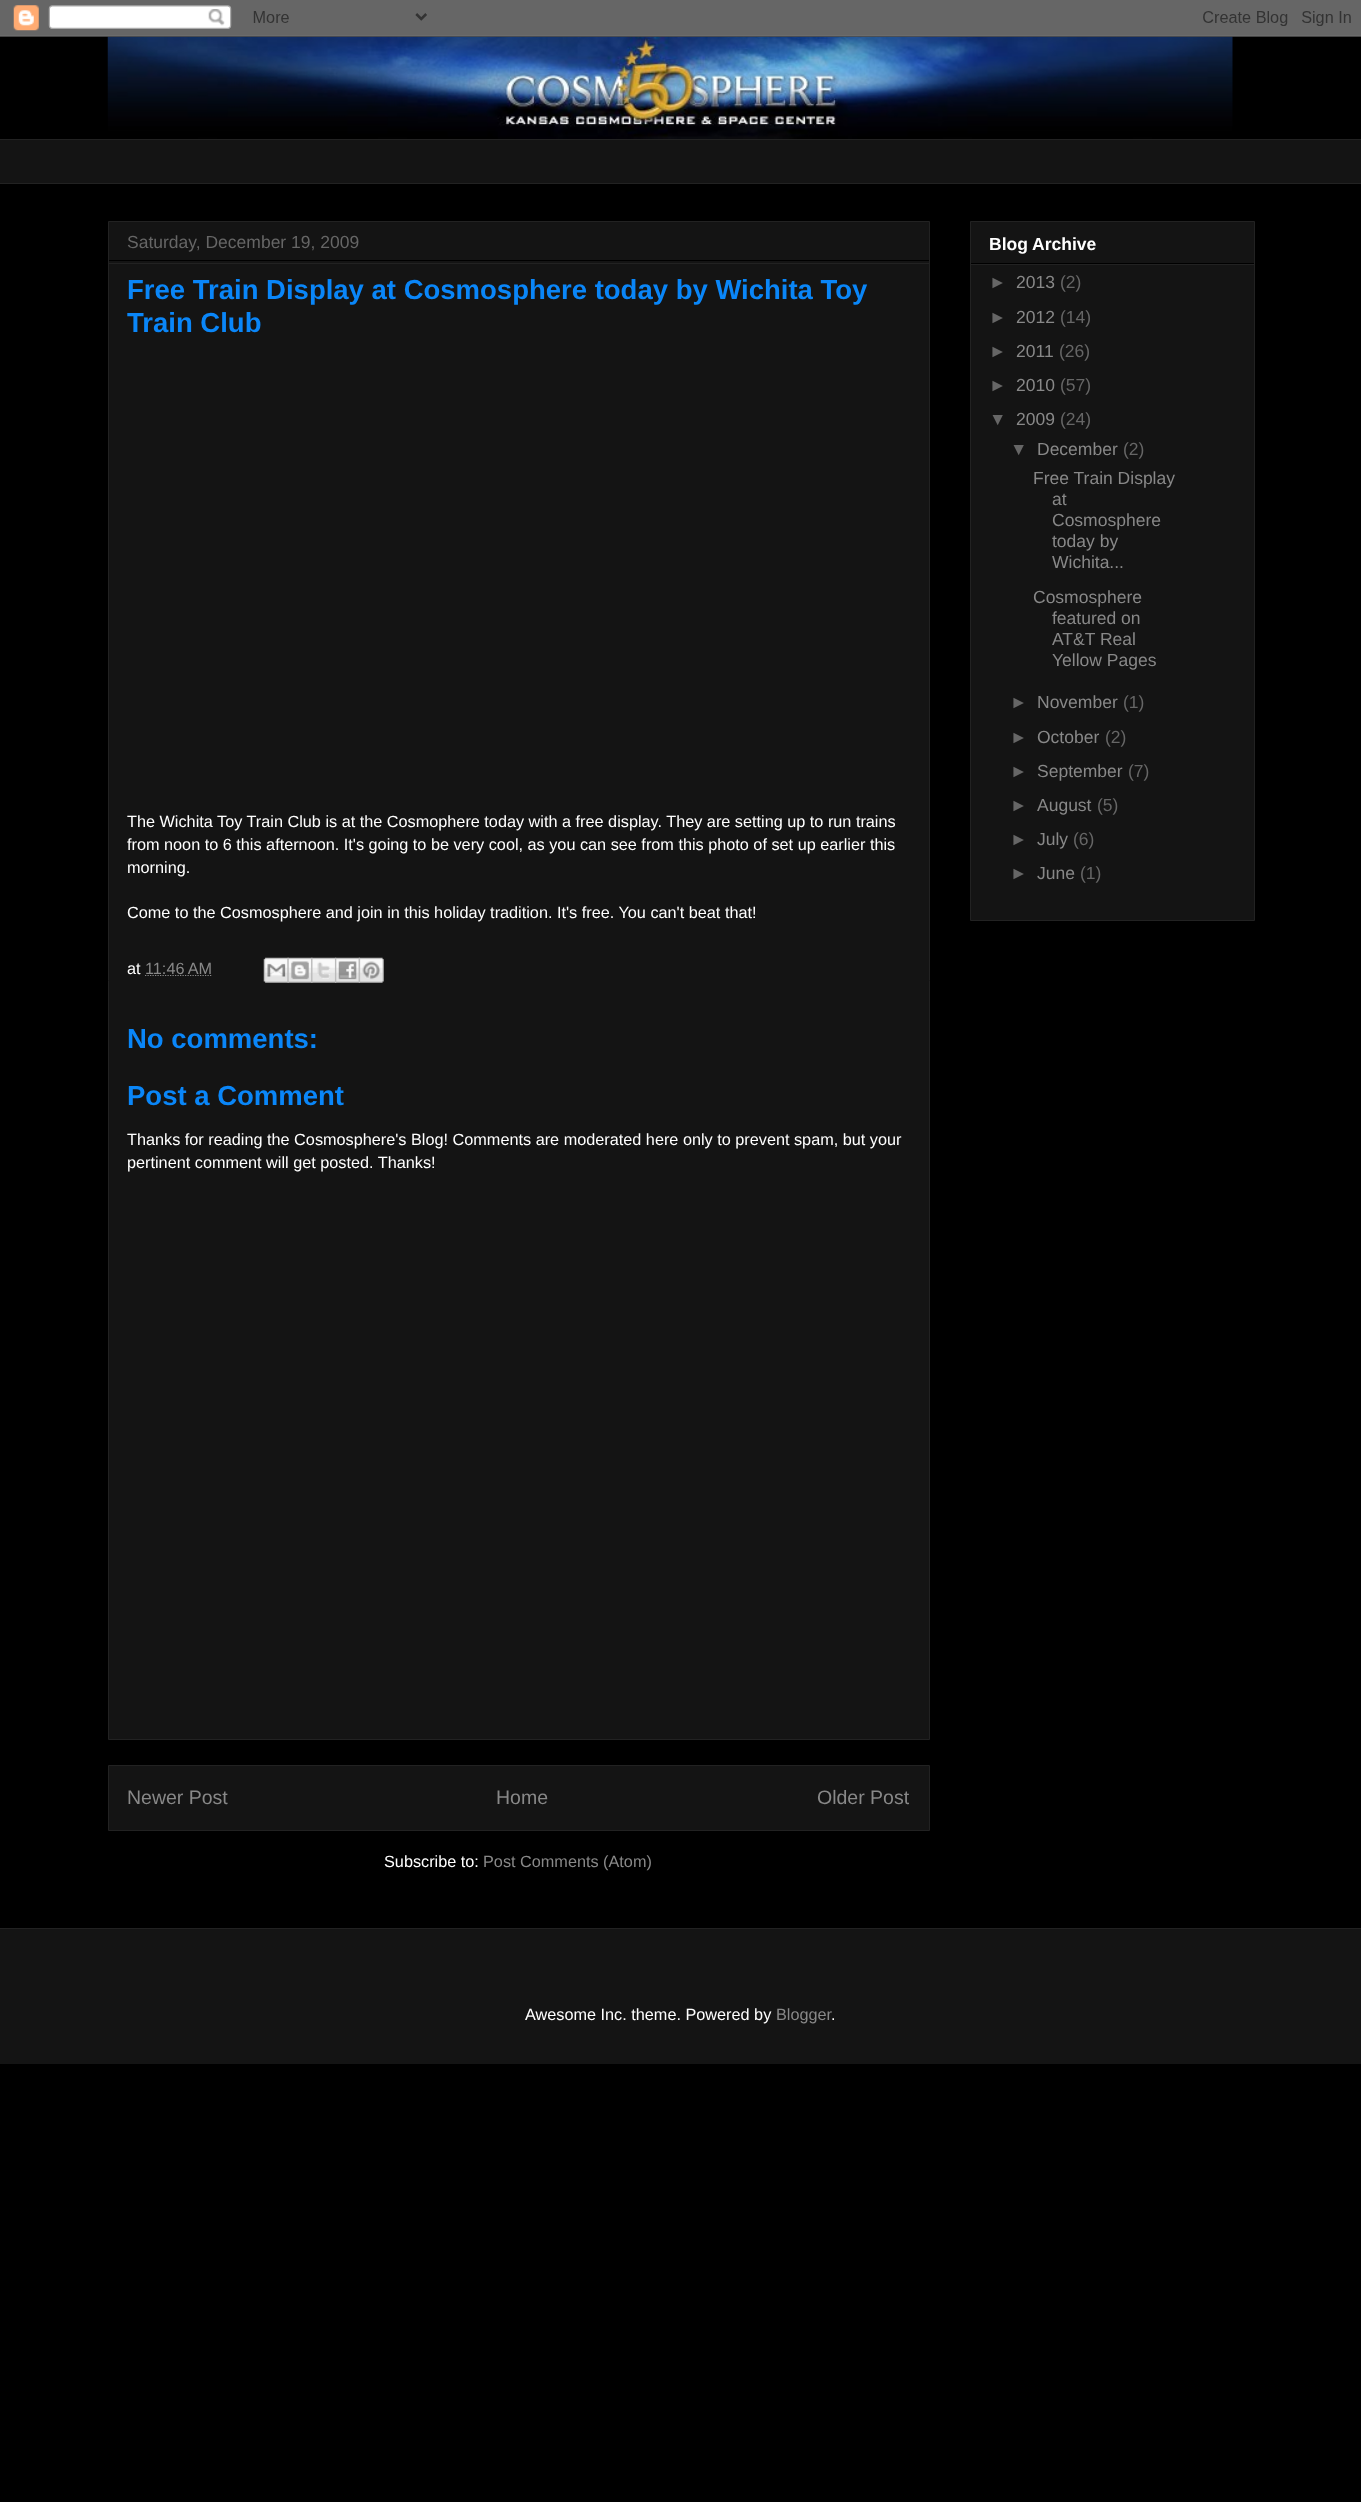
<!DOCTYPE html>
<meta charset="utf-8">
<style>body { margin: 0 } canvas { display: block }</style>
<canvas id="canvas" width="1361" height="2502"></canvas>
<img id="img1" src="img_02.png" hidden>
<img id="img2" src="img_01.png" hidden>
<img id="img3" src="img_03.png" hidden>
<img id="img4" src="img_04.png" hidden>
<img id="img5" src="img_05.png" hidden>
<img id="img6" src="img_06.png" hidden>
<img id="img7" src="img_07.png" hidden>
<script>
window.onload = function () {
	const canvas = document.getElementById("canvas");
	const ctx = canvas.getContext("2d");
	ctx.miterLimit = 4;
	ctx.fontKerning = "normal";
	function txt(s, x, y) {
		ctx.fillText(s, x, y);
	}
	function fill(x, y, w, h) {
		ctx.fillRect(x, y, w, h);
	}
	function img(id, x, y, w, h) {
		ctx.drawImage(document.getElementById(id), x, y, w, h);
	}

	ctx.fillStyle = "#000000";
	fill(0, 0, 1361, 2502);
	img("img1", 107, 36, 1126, 103);
	img("img2", 0, 0, 1361, 37);
	ctx.fillStyle = "#141414";
	fill(0, 140, 1361, 43);
	ctx.fillStyle = "#222222";
	fill(0, 139, 1361, 1);
	fill(0, 183, 1361, 1);
	ctx.fillStyle = "#141414";
	ctx.beginPath();
	ctx.rect(108.5, 221.5, 821, 1518);
	ctx.fill();
	ctx.strokeStyle = "#222222";
	ctx.stroke();
	ctx.fillStyle = "#000000";
	fill(109, 260, 820, 1);
	ctx.fillStyle = "#222222";
	fill(109, 263, 820, 1);
	ctx.beginPath();
	ctx.moveTo(145, 975.5);
	ctx.lineTo(212, 975.5);
	ctx.strokeStyle = "#888888";
	ctx.lineWidth = 1.2;
	ctx.setLineDash([1.25, 1.25]);
	ctx.stroke();
	img("img3", 263, 957, 26, 26);
	img("img4", 287, 957, 26, 26);
	img("img5", 311, 957, 26, 26);
	img("img6", 335, 957, 25, 26);
	img("img7", 358, 957, 26, 26);
	ctx.fillStyle = "#141414";
	ctx.beginPath();
	ctx.rect(108.5, 1765.5, 821, 65);
	ctx.fill();
	ctx.strokeStyle = "#222222";
	ctx.lineWidth = 1;
	ctx.setLineDash([]);
	ctx.stroke();
	ctx.beginPath();
	ctx.rect(970.5, 221.5, 284, 699);
	ctx.fill();
	ctx.stroke();
	ctx.fillStyle = "#000000";
	fill(971, 263, 283, 1);
	ctx.fillStyle = "#222222";
	fill(971, 264, 283, 1);
	ctx.fillStyle = "#141414";
	fill(0, 1929, 1361, 135);
	ctx.fillStyle = "#222222";
	fill(0, 1928, 1361, 1);
	ctx.font = "17.5px Liberation Sans";
	ctx.fillStyle = "#666666";
	txt("Saturday, December 19, 2009", 127, 248);
	ctx.font = "bold 27.5px Liberation Sans";
	ctx.fillStyle = "#0A86F8";
	txt("Free Train Display at Cosmosphere today by Wichita Toy", 127, 299);
	txt("Train Club", 127, 332);
	ctx.font = "16.25px Liberation Sans";
	ctx.fillStyle = "#FFFFFF";
	txt("The Wichita Toy Train Club is at the Cosmophere today with a free display. They are setting up to run trains", 127, 827);
	txt("from noon to 6 this afternoon. It's going to be very cool, as you can see from this photo of set up earlier this", 127, 850);
	txt("morning.", 127, 873);
	txt("Come to the Cosmosphere and join in this holiday tradition. It's free. You can't beat that!", 127, 918);
	txt("at", 127, 974);
	ctx.fillStyle = "#888888";
	txt("11:46 AM", 145, 974);
	ctx.font = "bold 27.5px Liberation Sans";
	ctx.fillStyle = "#0A86F8";
	txt("No comments:", 127, 1048);
	txt("Post a Comment", 127, 1105);
	ctx.font = "16.25px Liberation Sans";
	ctx.fillStyle = "#FFFFFF";
	txt("Thanks for reading the Cosmosphere's Blog! Comments are moderated here only to prevent spam, but your", 127, 1145);
	txt("pertinent comment will get posted. Thanks!", 127, 1168);
	ctx.font = "19.5px Liberation Sans";
	ctx.fillStyle = "#888888";
	txt("Newer Post", 127, 1804);
	txt("Home", 496, 1804);
	txt("Older Post", 817, 1804);
	ctx.font = "16.25px Liberation Sans";
	ctx.fillStyle = "#FFFFFF";
	txt("Subscribe to:", 384, 1867);
	ctx.fillStyle = "#888888";
	txt("Post Comments (Atom)", 483, 1867);
	ctx.font = "bold 17.5px Liberation Sans";
	ctx.fillStyle = "#FFFFFF";
	txt("Blog Archive", 989, 250);
	ctx.font = "17.5px Liberation Sans";
	ctx.fillStyle = "#666666";
	txt("►", 989, 288);
	ctx.fillStyle = "#888888";
	txt("2013", 1016, 288);
	ctx.fillStyle = "#666666";
	txt("(2)", 1060, 288);
	txt("►", 989, 323);
	ctx.fillStyle = "#888888";
	txt("2012", 1016, 323);
	ctx.fillStyle = "#666666";
	txt("(14)", 1060, 323);
	txt("►", 989, 357);
	ctx.fillStyle = "#888888";
	txt("2011", 1016, 357);
	ctx.fillStyle = "#666666";
	txt("(26)", 1059, 357);
	txt("►", 989, 391);
	ctx.fillStyle = "#888888";
	txt("2010", 1016, 391);
	ctx.fillStyle = "#666666";
	txt("(57)", 1060, 391);
	txt("▼", 989, 425);
	ctx.fillStyle = "#888888";
	txt("2009", 1016, 425);
	ctx.fillStyle = "#666666";
	txt("(24)", 1060, 425);
	txt("▼", 1010, 455);
	ctx.fillStyle = "#888888";
	txt("December", 1037, 455);
	ctx.fillStyle = "#666666";
	txt("(2)", 1123, 455);
	ctx.fillStyle = "#888888";
	txt("Free Train Display", 1033, 484);
	txt("at", 1052, 505);
	txt("Cosmosphere", 1052, 526);
	txt("today by", 1052, 547);
	txt("Wichita...", 1052, 568);
	txt("Cosmosphere", 1033, 603);
	txt("featured on", 1052, 624);
	txt("AT&T Real", 1052, 645);
	txt("Yellow Pages", 1052, 666);
	ctx.fillStyle = "#666666";
	txt("►", 1010, 708);
	ctx.fillStyle = "#888888";
	txt("November", 1037, 708);
	ctx.fillStyle = "#666666";
	txt("(1)", 1123, 708);
	txt("►", 1010, 743);
	ctx.fillStyle = "#888888";
	txt("October", 1037, 743);
	ctx.fillStyle = "#666666";
	txt("(2)", 1105, 743);
	txt("►", 1010, 777);
	ctx.fillStyle = "#888888";
	txt("September", 1037, 777);
	ctx.fillStyle = "#666666";
	txt("(7)", 1128, 777);
	txt("►", 1010, 811);
	ctx.fillStyle = "#888888";
	txt("August", 1037, 811);
	ctx.fillStyle = "#666666";
	txt("(5)", 1097, 811);
	txt("►", 1010, 845);
	ctx.fillStyle = "#888888";
	txt("July", 1037, 845);
	ctx.fillStyle = "#666666";
	txt("(6)", 1073, 845);
	txt("►", 1010, 879);
	ctx.fillStyle = "#888888";
	txt("June", 1037, 879);
	ctx.fillStyle = "#666666";
	txt("(1)", 1080, 879);
	ctx.font = "16.25px Liberation Sans";
	ctx.fillStyle = "#FFFFFF";
	txt("Awesome Inc. theme. Powered by", 525, 2020);
	ctx.fillStyle = "#888888";
	txt("Blogger", 776, 2020);
	ctx.fillStyle = "#FFFFFF";
	txt(".", 831, 2020);
};
</script>
